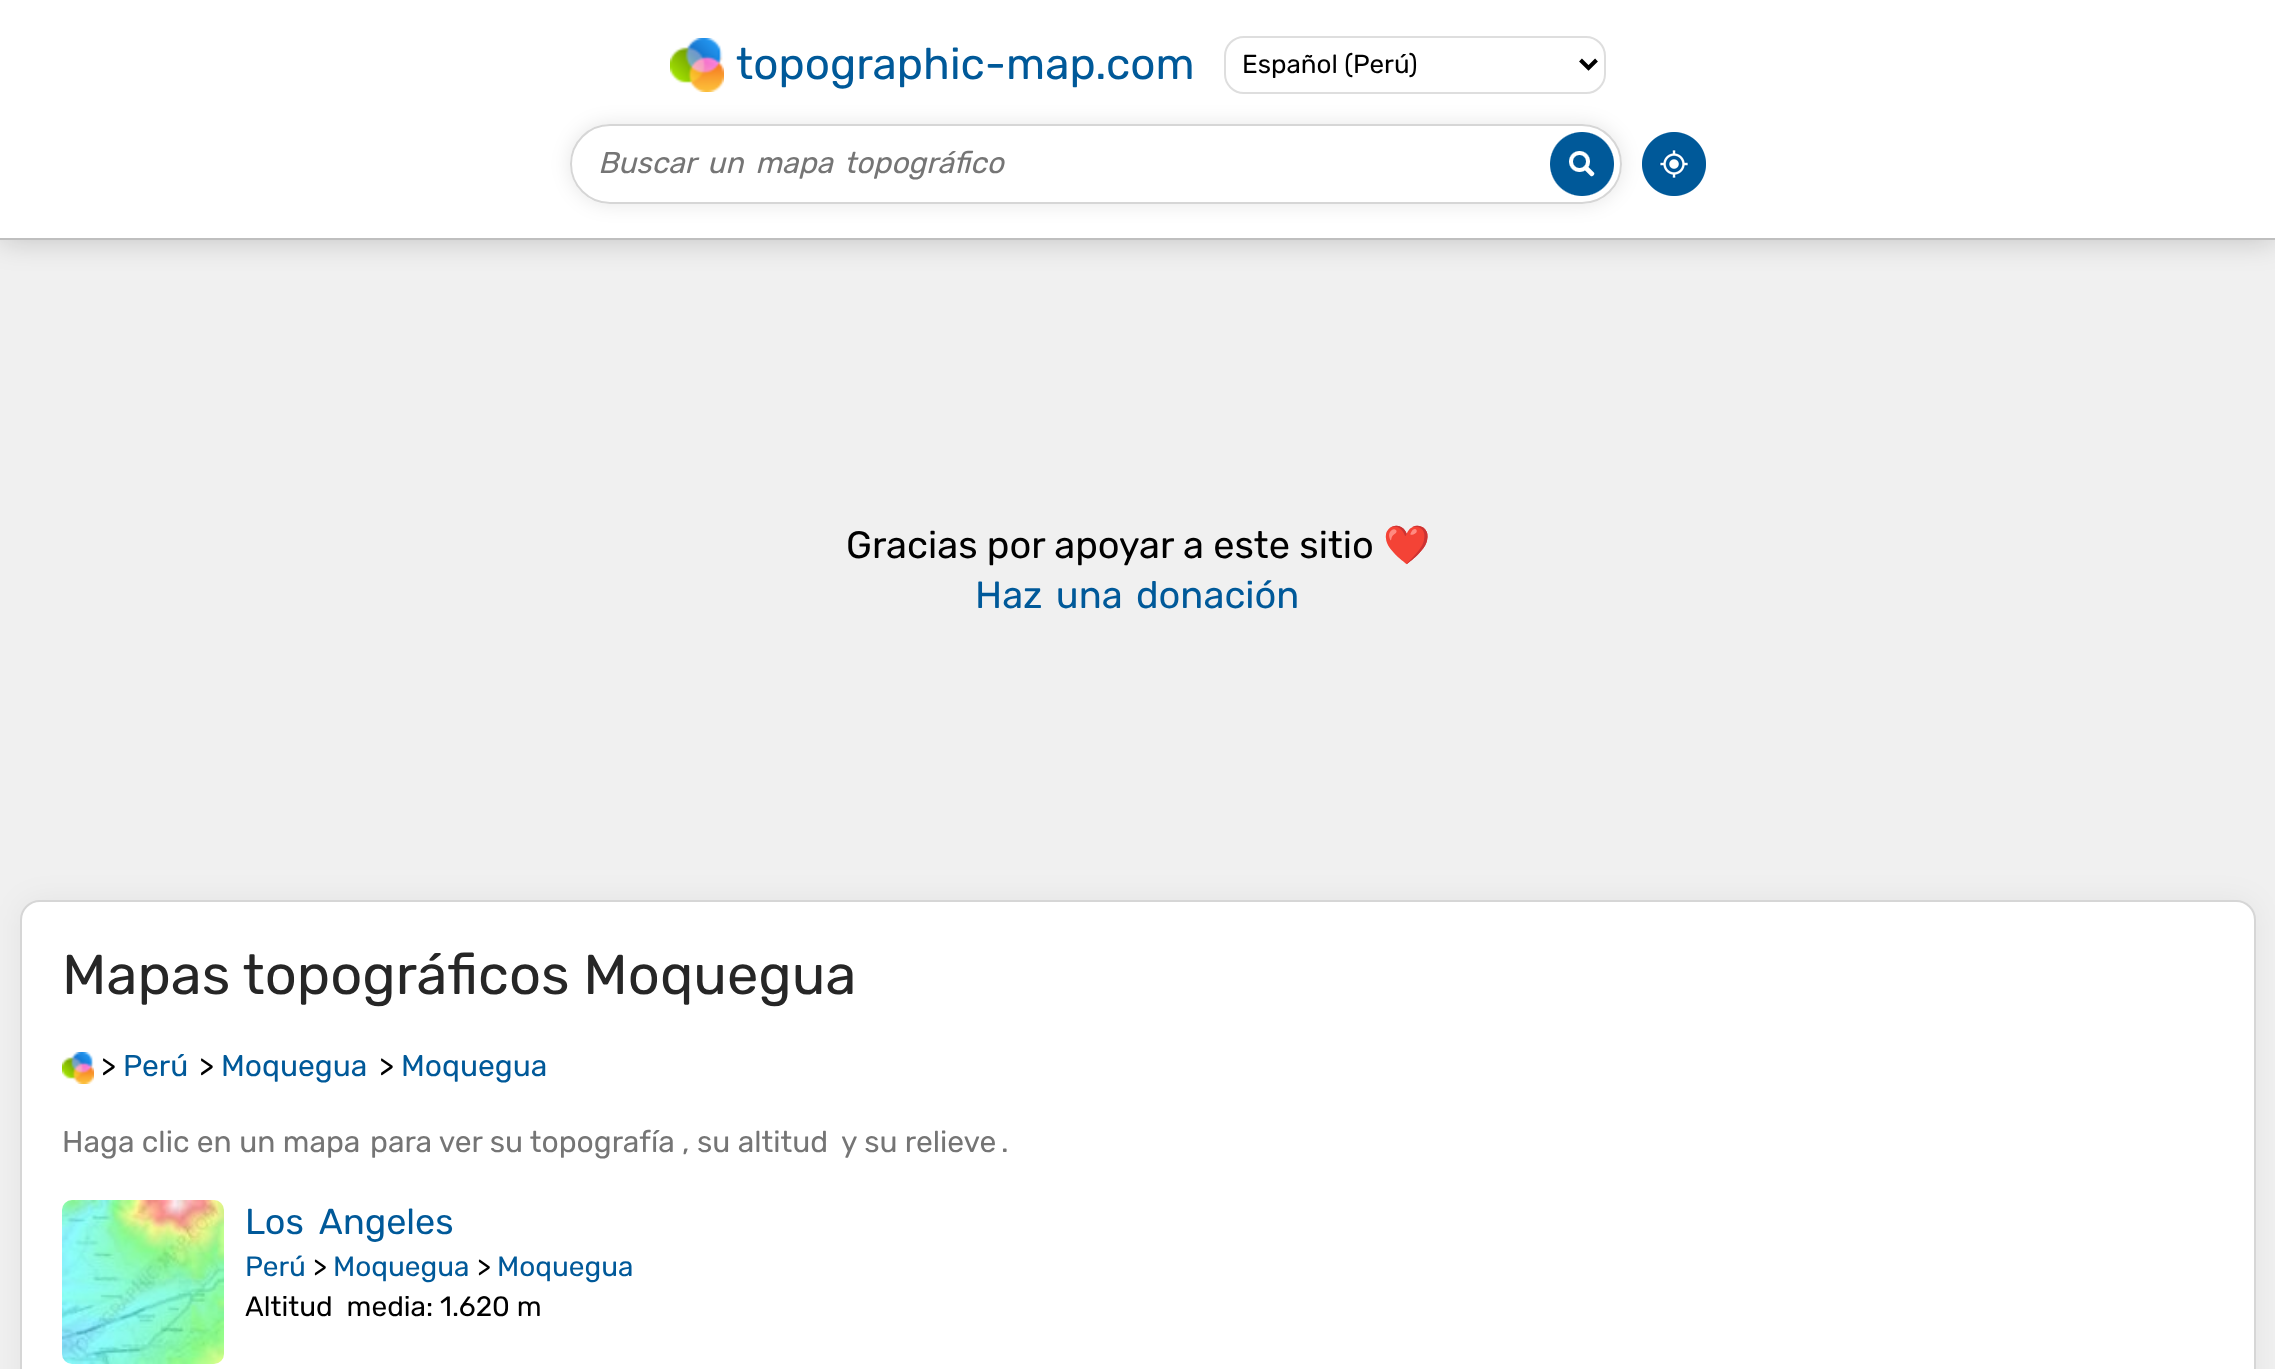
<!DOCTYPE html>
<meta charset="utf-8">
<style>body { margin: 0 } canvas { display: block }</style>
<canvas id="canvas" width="2275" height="1369"></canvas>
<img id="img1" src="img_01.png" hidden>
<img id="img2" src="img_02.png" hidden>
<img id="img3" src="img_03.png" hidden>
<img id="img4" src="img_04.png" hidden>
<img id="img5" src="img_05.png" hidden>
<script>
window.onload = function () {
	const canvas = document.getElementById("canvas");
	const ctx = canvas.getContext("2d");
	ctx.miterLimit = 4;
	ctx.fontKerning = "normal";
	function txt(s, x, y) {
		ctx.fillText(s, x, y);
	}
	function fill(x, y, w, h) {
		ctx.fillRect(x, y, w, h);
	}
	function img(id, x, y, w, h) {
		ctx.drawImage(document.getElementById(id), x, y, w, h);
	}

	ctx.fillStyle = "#F0F0F0";
	fill(0, 0, 2275, 1369);
	ctx.fillStyle = "rgba(0, 0, 0, 0.2)";
	ctx.filter = "blur(15px)";
	ctx.beginPath();
	ctx.rect(0, 0, 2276, 240);
	ctx.fill();
	ctx.filter = "none";
	ctx.fillStyle = "#FFFFFF";
	fill(0, 0, 2275, 238);
	ctx.fillStyle = "#BFBFBF";
	fill(0, 238, 2275, 2);
	img("img1", 670, 38, 54, 54);
	ctx.beginPath();
	ctx.roundRect(1225, 37, 380, 56, 19);
	ctx.strokeStyle = "#DEDEDE";
	ctx.lineWidth = 2;
	ctx.stroke();
	ctx.beginPath();
	ctx.moveTo(1580.5, 60);
	ctx.lineTo(1588.5, 68);
	ctx.lineTo(1596.5, 60);
	ctx.strokeStyle = "#000000";
	ctx.lineWidth = 4;
	ctx.stroke();
	ctx.save();
	ctx.beginPath();
	ctx.moveTo(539, 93);
	ctx.lineTo(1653, 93);
	ctx.lineTo(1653, 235);
	ctx.lineTo(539, 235);
	ctx.closePath();
	ctx.moveTo(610, 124);
	ctx.lineTo(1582, 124);
	ctx.bezierCurveTo(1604, 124, 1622, 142, 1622, 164);
	ctx.bezierCurveTo(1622, 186, 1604, 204, 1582, 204);
	ctx.lineTo(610, 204);
	ctx.bezierCurveTo(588, 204, 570, 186, 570, 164);
	ctx.bezierCurveTo(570, 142, 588, 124, 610, 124);
	ctx.closePath();
	ctx.clip("evenodd");
	ctx.fillStyle = "rgba(0, 0, 0, 0.1)";
	ctx.filter = "blur(10px)";
	ctx.beginPath();
	ctx.roundRect(570, 124, 1052, 80, 40);
	ctx.fill();
	ctx.filter = "none";
	ctx.restore();
	ctx.beginPath();
	ctx.roundRect(571, 125, 1050, 78, 39);
	ctx.strokeStyle = "#D6D6D6";
	ctx.lineWidth = 2;
	ctx.stroke();
	img("img2", 1550, 132, 64, 64);
	img("img3", 1642, 132, 64, 64);
	ctx.fillStyle = "rgba(0, 0, 0, 0.05)";
	ctx.filter = "blur(15px)";
	ctx.beginPath();
	ctx.roundRect(20, 900, 2236, 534, 20);
	ctx.fill();
	ctx.filter = "none";
	ctx.fillStyle = "#FFFFFF";
	ctx.beginPath();
	ctx.roundRect(21, 901, 2234, 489, 19);
	ctx.fill();
	ctx.stroke();
	img("img4", 62, 1052, 32, 32);
	img("img5", 62, 1200, 162, 164);
	ctx.font = "44px Rubik";
	ctx.fillStyle = "#005999";
	txt("topographic-map.com", 736, 79);
	ctx.font = "26px Rubik";
	ctx.fillStyle = "#000000";
	txt("Español (Perú)", 1242, 73);
	ctx.wordSpacing = "4.5px";
	ctx.font = "italic 30px Rubik";
	ctx.fillStyle = "#757575";
	txt("Buscar un mapa topográfico", 598, 173);
	ctx.wordSpacing = "0px";
	ctx.font = "38px Rubik";
	ctx.fillStyle = "#000000";
	txt("Gracias por apoyar a este sitio", 846, 558);
	ctx.font = "38px Noto Color Emoji";
	txt("❤️", 1383, 558);
	ctx.wordSpacing = "4px";
	ctx.font = "38px Rubik";
	ctx.fillStyle = "#005999";
	txt("Haz una donación", 975, 608);
	ctx.wordSpacing = "0px";
	ctx.font = "56px Rubik";
	ctx.fillStyle = "#262626";
	txt("Mapas topográficos Moquegua", 62, 994);
	ctx.font = "30px Rubik";
	ctx.fillStyle = "#000000";
	txt(">", 101, 1076);
	ctx.fillStyle = "#005999";
	txt("Perú", 123, 1076);
	ctx.fillStyle = "#000000";
	txt(">", 199, 1076);
	ctx.fillStyle = "#005999";
	txt("Moquegua", 221, 1076);
	ctx.fillStyle = "#000000";
	txt(">", 379, 1076);
	ctx.fillStyle = "#005999";
	txt("Moquegua", 401, 1076);
	ctx.fillStyle = "#757575";
	txt("Haga clic en un mapa", 62, 1152);
	txt("para ver su topografía , su altitud", 370, 1152);
	txt("y su relieve", 841, 1152);
	txt(".", 1001, 1152);
	ctx.wordSpacing = "7px";
	ctx.font = "36px Rubik";
	ctx.fillStyle = "#005999";
	txt("Los Angeles", 245, 1234);
	ctx.wordSpacing = "0px";
	ctx.font = "28px Rubik";
	txt("Perú", 245, 1276);
	ctx.fillStyle = "#000000";
	txt(">", 313, 1276);
	ctx.fillStyle = "#005999";
	txt("Moquegua", 333, 1276);
	ctx.fillStyle = "#000000";
	txt(">", 477, 1276);
	ctx.fillStyle = "#005999";
	txt("Moquegua", 497, 1276);
	ctx.wordSpacing = "7px";
	ctx.fillStyle = "#000000";
	txt("Altitud media", 245, 1316);
	ctx.wordSpacing = "0px";
	txt(": 1.620 m", 426, 1316);
};
</script>
